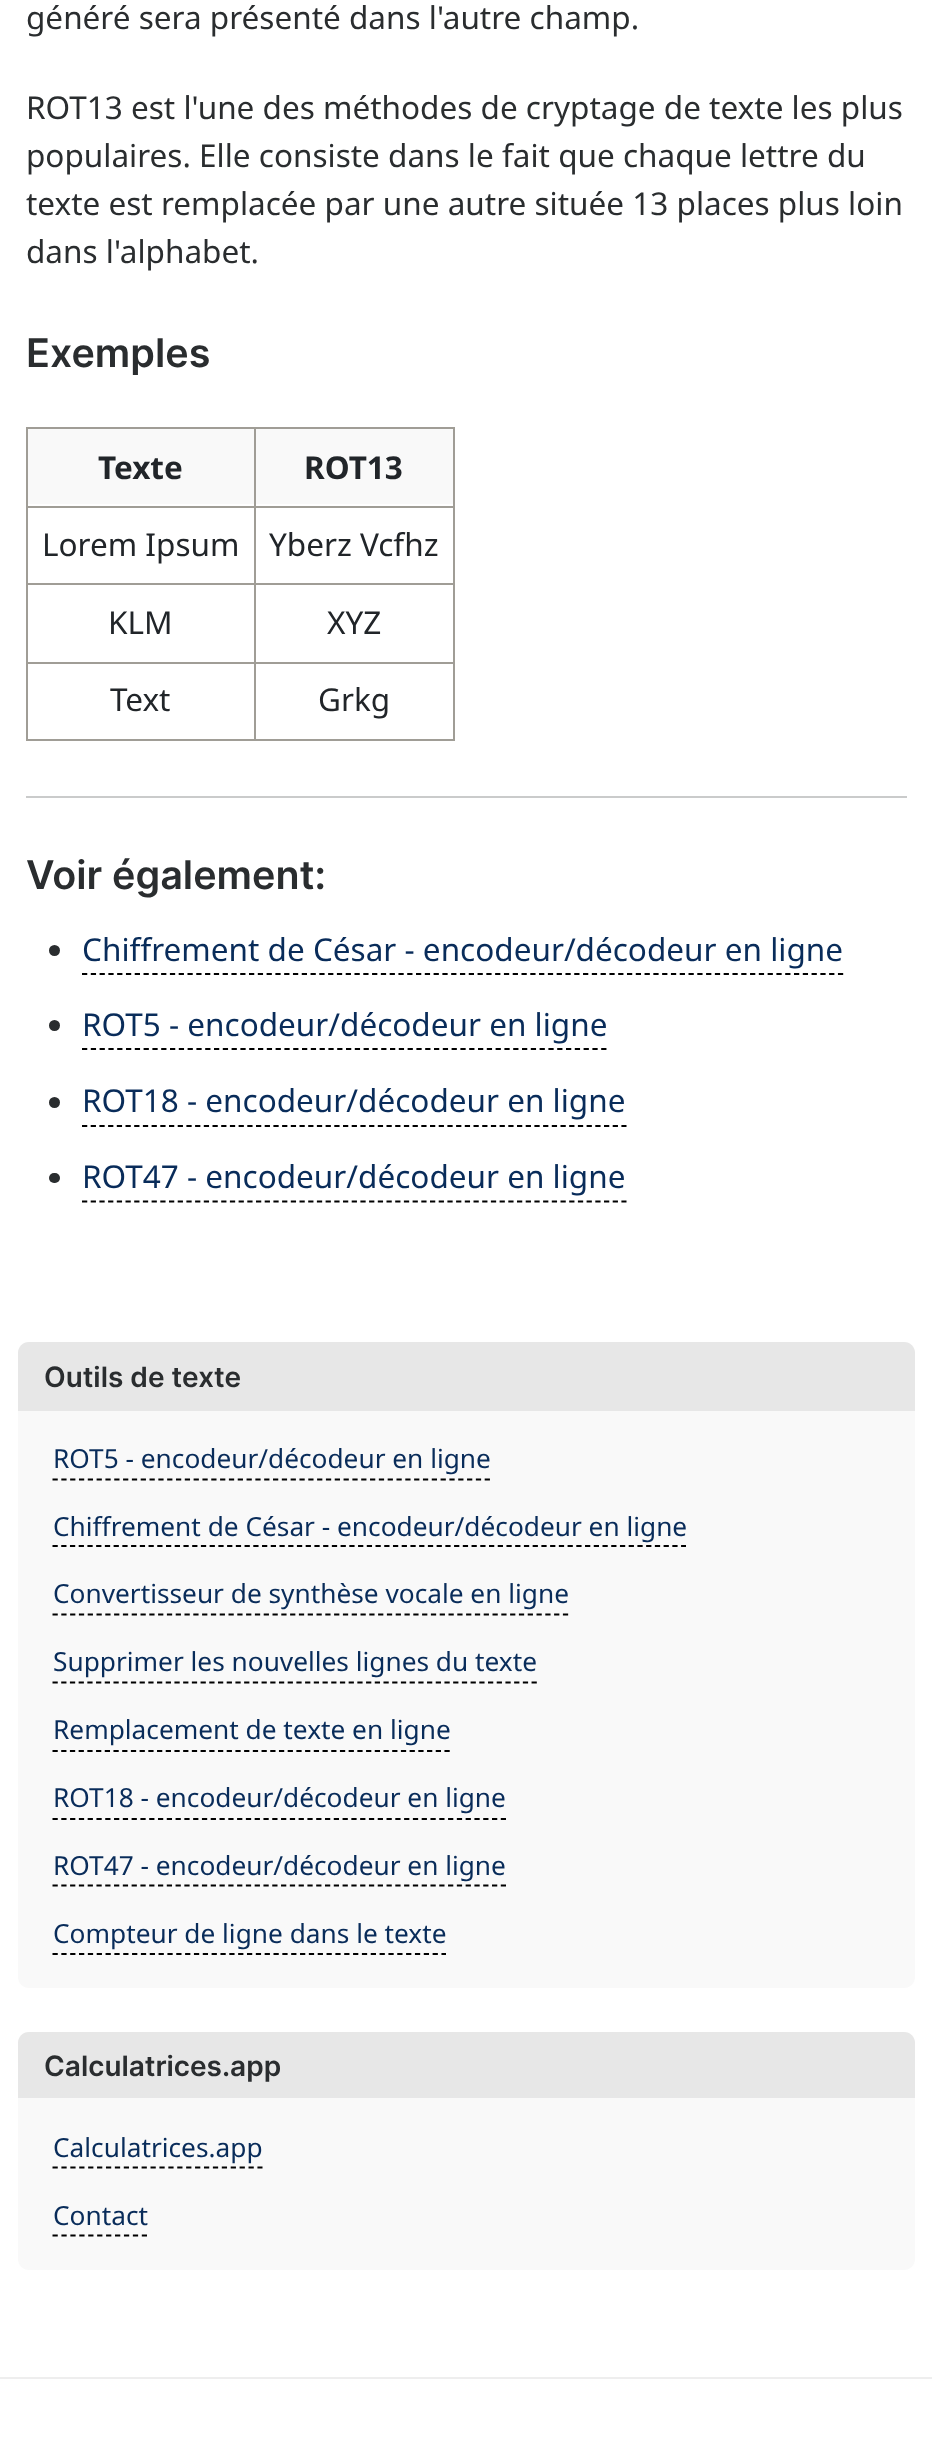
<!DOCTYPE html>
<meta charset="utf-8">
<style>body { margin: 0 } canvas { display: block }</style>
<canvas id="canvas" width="932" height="2440"></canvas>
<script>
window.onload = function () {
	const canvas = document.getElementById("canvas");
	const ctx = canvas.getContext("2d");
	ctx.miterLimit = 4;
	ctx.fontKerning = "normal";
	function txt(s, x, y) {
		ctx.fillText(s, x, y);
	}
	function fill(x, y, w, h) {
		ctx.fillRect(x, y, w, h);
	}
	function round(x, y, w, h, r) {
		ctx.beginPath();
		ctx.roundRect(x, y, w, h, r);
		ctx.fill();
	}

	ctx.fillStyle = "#FFFFFF";
	fill(0, 0, 932, 2440);
	ctx.fillStyle = "#F9F9F9";
	fill(28, 429, 425, 75);
	ctx.fillStyle = "#A09D96";
	fill(26, 427, 429, 2);
	fill(26, 506, 429, 2);
	fill(26, 583, 429, 2);
	fill(26, 662, 429, 2);
	fill(26, 739, 429, 2);
	fill(26, 427, 2, 313);
	fill(453, 427, 2, 313);
	fill(254, 427, 2, 313);
	ctx.fillStyle = "#CACBCB";
	fill(26, 796, 881, 2);
	ctx.fillStyle = "#2A2D2F";
	ctx.beginPath();
	ctx.arc(54.5, 950.5, 5.5, 0, Math.PI * 2);
	ctx.fill();
	ctx.beginPath();
	ctx.moveTo(82, 974);
	ctx.lineTo(843.5, 974);
	ctx.strokeStyle = "#000000";
	ctx.lineWidth = 1.8;
	ctx.setLineDash([5.25, 3.54]);
	ctx.stroke();
	ctx.beginPath();
	ctx.arc(54.5, 1025.5, 5.5, 0, Math.PI * 2);
	ctx.fill();
	ctx.beginPath();
	ctx.moveTo(82, 1049);
	ctx.lineTo(607, 1049);
	ctx.setLineDash([5.25, 3.55]);
	ctx.stroke();
	ctx.beginPath();
	ctx.arc(54.5, 1102.5, 5.5, 0, Math.PI * 2);
	ctx.fill();
	ctx.beginPath();
	ctx.moveTo(82, 1126);
	ctx.lineTo(626.5, 1126);
	ctx.setLineDash([5.25, 3.45]);
	ctx.stroke();
	round(49, 1173, 11, 10, 5);
	ctx.beginPath();
	ctx.moveTo(82, 1201.5);
	ctx.lineTo(626.5, 1201.5);
	ctx.stroke();
	ctx.fillStyle = "#F9F9F9";
	round(18, 1342, 897, 646, 11);
	ctx.fillStyle = "#E7E7E7";
	ctx.beginPath();
	ctx.roundRect(18, 1342, 897, 69, [11, 11, 0, 0]);
	ctx.fill();
	ctx.beginPath();
	ctx.moveTo(52.5, 1479.5);
	ctx.lineTo(490, 1479.5);
	ctx.setLineDash([5.25, 3.57]);
	ctx.stroke();
	ctx.beginPath();
	ctx.moveTo(52.5, 1546);
	ctx.lineTo(686, 1546);
	ctx.setLineDash([5.25, 3.48]);
	ctx.stroke();
	ctx.beginPath();
	ctx.moveTo(52.5, 1614.5);
	ctx.lineTo(569, 1614.5);
	ctx.setLineDash([5.25, 3.55]);
	ctx.stroke();
	ctx.beginPath();
	ctx.moveTo(52.5, 1682.5);
	ctx.lineTo(537, 1682.5);
	ctx.setLineDash([5.25, 3.46]);
	ctx.stroke();
	ctx.beginPath();
	ctx.moveTo(52.5, 1751);
	ctx.lineTo(450, 1751);
	ctx.stroke();
	ctx.beginPath();
	ctx.moveTo(52.5, 1819);
	ctx.lineTo(506, 1819);
	ctx.setLineDash([5.25, 3.54]);
	ctx.stroke();
	ctx.beginPath();
	ctx.moveTo(52.5, 1885.5);
	ctx.lineTo(506, 1885.5);
	ctx.stroke();
	ctx.beginPath();
	ctx.moveTo(52.5, 1954);
	ctx.lineTo(446, 1954);
	ctx.setLineDash([5.25, 3.59]);
	ctx.stroke();
	ctx.fillStyle = "#F9F9F9";
	round(18, 2032, 897, 238, 11);
	ctx.fillStyle = "#E7E7E7";
	ctx.beginPath();
	ctx.roundRect(18, 2032, 897, 66, [11, 11, 0, 0]);
	ctx.fill();
	ctx.beginPath();
	ctx.moveTo(52.5, 2167.5);
	ctx.lineTo(262.5, 2167.5);
	ctx.setLineDash([5.25, 3.66]);
	ctx.stroke();
	ctx.beginPath();
	ctx.moveTo(52.5, 2235.5);
	ctx.lineTo(147, 2235.5);
	ctx.setLineDash([5.25, 3.68]);
	ctx.stroke();
	ctx.fillStyle = "#EEEEEE";
	fill(0, 2377, 932, 2);
	ctx.font = "31.5px Noto Sans";
	ctx.fillStyle = "#2A2D2F";
	txt("généré sera présenté dans l'autre champ.", 26, 29);
	txt("ROT13 est l'une des méthodes de cryptage de texte les plus", 26, 119);
	txt("populaires. Elle consiste dans le fait que chaque lettre du", 26, 167);
	txt("texte est remplacée par une autre située 13 places plus loin", 26, 215);
	txt("dans l'alphabet.", 26, 263);
	ctx.font = "600 39.5px Inter";
	txt("Exemples", 26, 367);
	ctx.font = "bold 31.5px Noto Sans";
	ctx.fillStyle = "#212529";
	txt("Texte", 98, 479);
	txt("ROT13", 304, 479);
	ctx.font = "31.5px Noto Sans";
	txt("Lorem Ipsum", 42, 556);
	txt("Yberz Vcfhz", 269, 556);
	txt("KLM", 108, 634);
	txt("XYZ", 327, 634);
	txt("Text", 110, 711);
	txt("Grkg", 318, 711);
	ctx.font = "600 39.5px Inter";
	ctx.fillStyle = "#2A2D2F";
	txt("Voir également:", 26, 889);
	ctx.font = "31.5px Noto Sans";
	ctx.fillStyle = "#092C5A";
	txt("Chiffrement de César - encodeur/décodeur en ligne", 82, 961);
	txt("ROT5 - encodeur/décodeur en ligne", 82, 1036);
	txt("ROT18 - encodeur/décodeur en ligne", 82, 1112);
	txt("ROT47 - encodeur/décodeur en ligne", 82, 1188);
	ctx.font = "600 28px Inter";
	ctx.fillStyle = "#2A2D2F";
	txt("Outils de texte", 44, 1387);
	ctx.font = "26.25px Noto Sans";
	ctx.fillStyle = "#092C5A";
	txt("ROT5 - encodeur/décodeur en ligne", 53, 1468);
	txt("Chiffrement de César - encodeur/décodeur en ligne", 53, 1536);
	txt("Convertisseur de synthèse vocale en ligne", 53, 1603);
	txt("Supprimer les nouvelles lignes du texte", 53, 1671);
	txt("Remplacement de texte en ligne", 53, 1739);
	txt("ROT18 - encodeur/décodeur en ligne", 53, 1807);
	txt("ROT47 - encodeur/décodeur en ligne", 53, 1875);
	txt("Compteur de ligne dans le texte", 53, 1943);
	ctx.font = "600 28px Inter";
	ctx.fillStyle = "#2A2D2F";
	txt("Calculatrices.app", 44, 2076);
	ctx.font = "26.25px Noto Sans";
	ctx.fillStyle = "#092C5A";
	txt("Calculatrices.app", 53, 2157);
	txt("Contact", 53, 2225);
};
</script>
